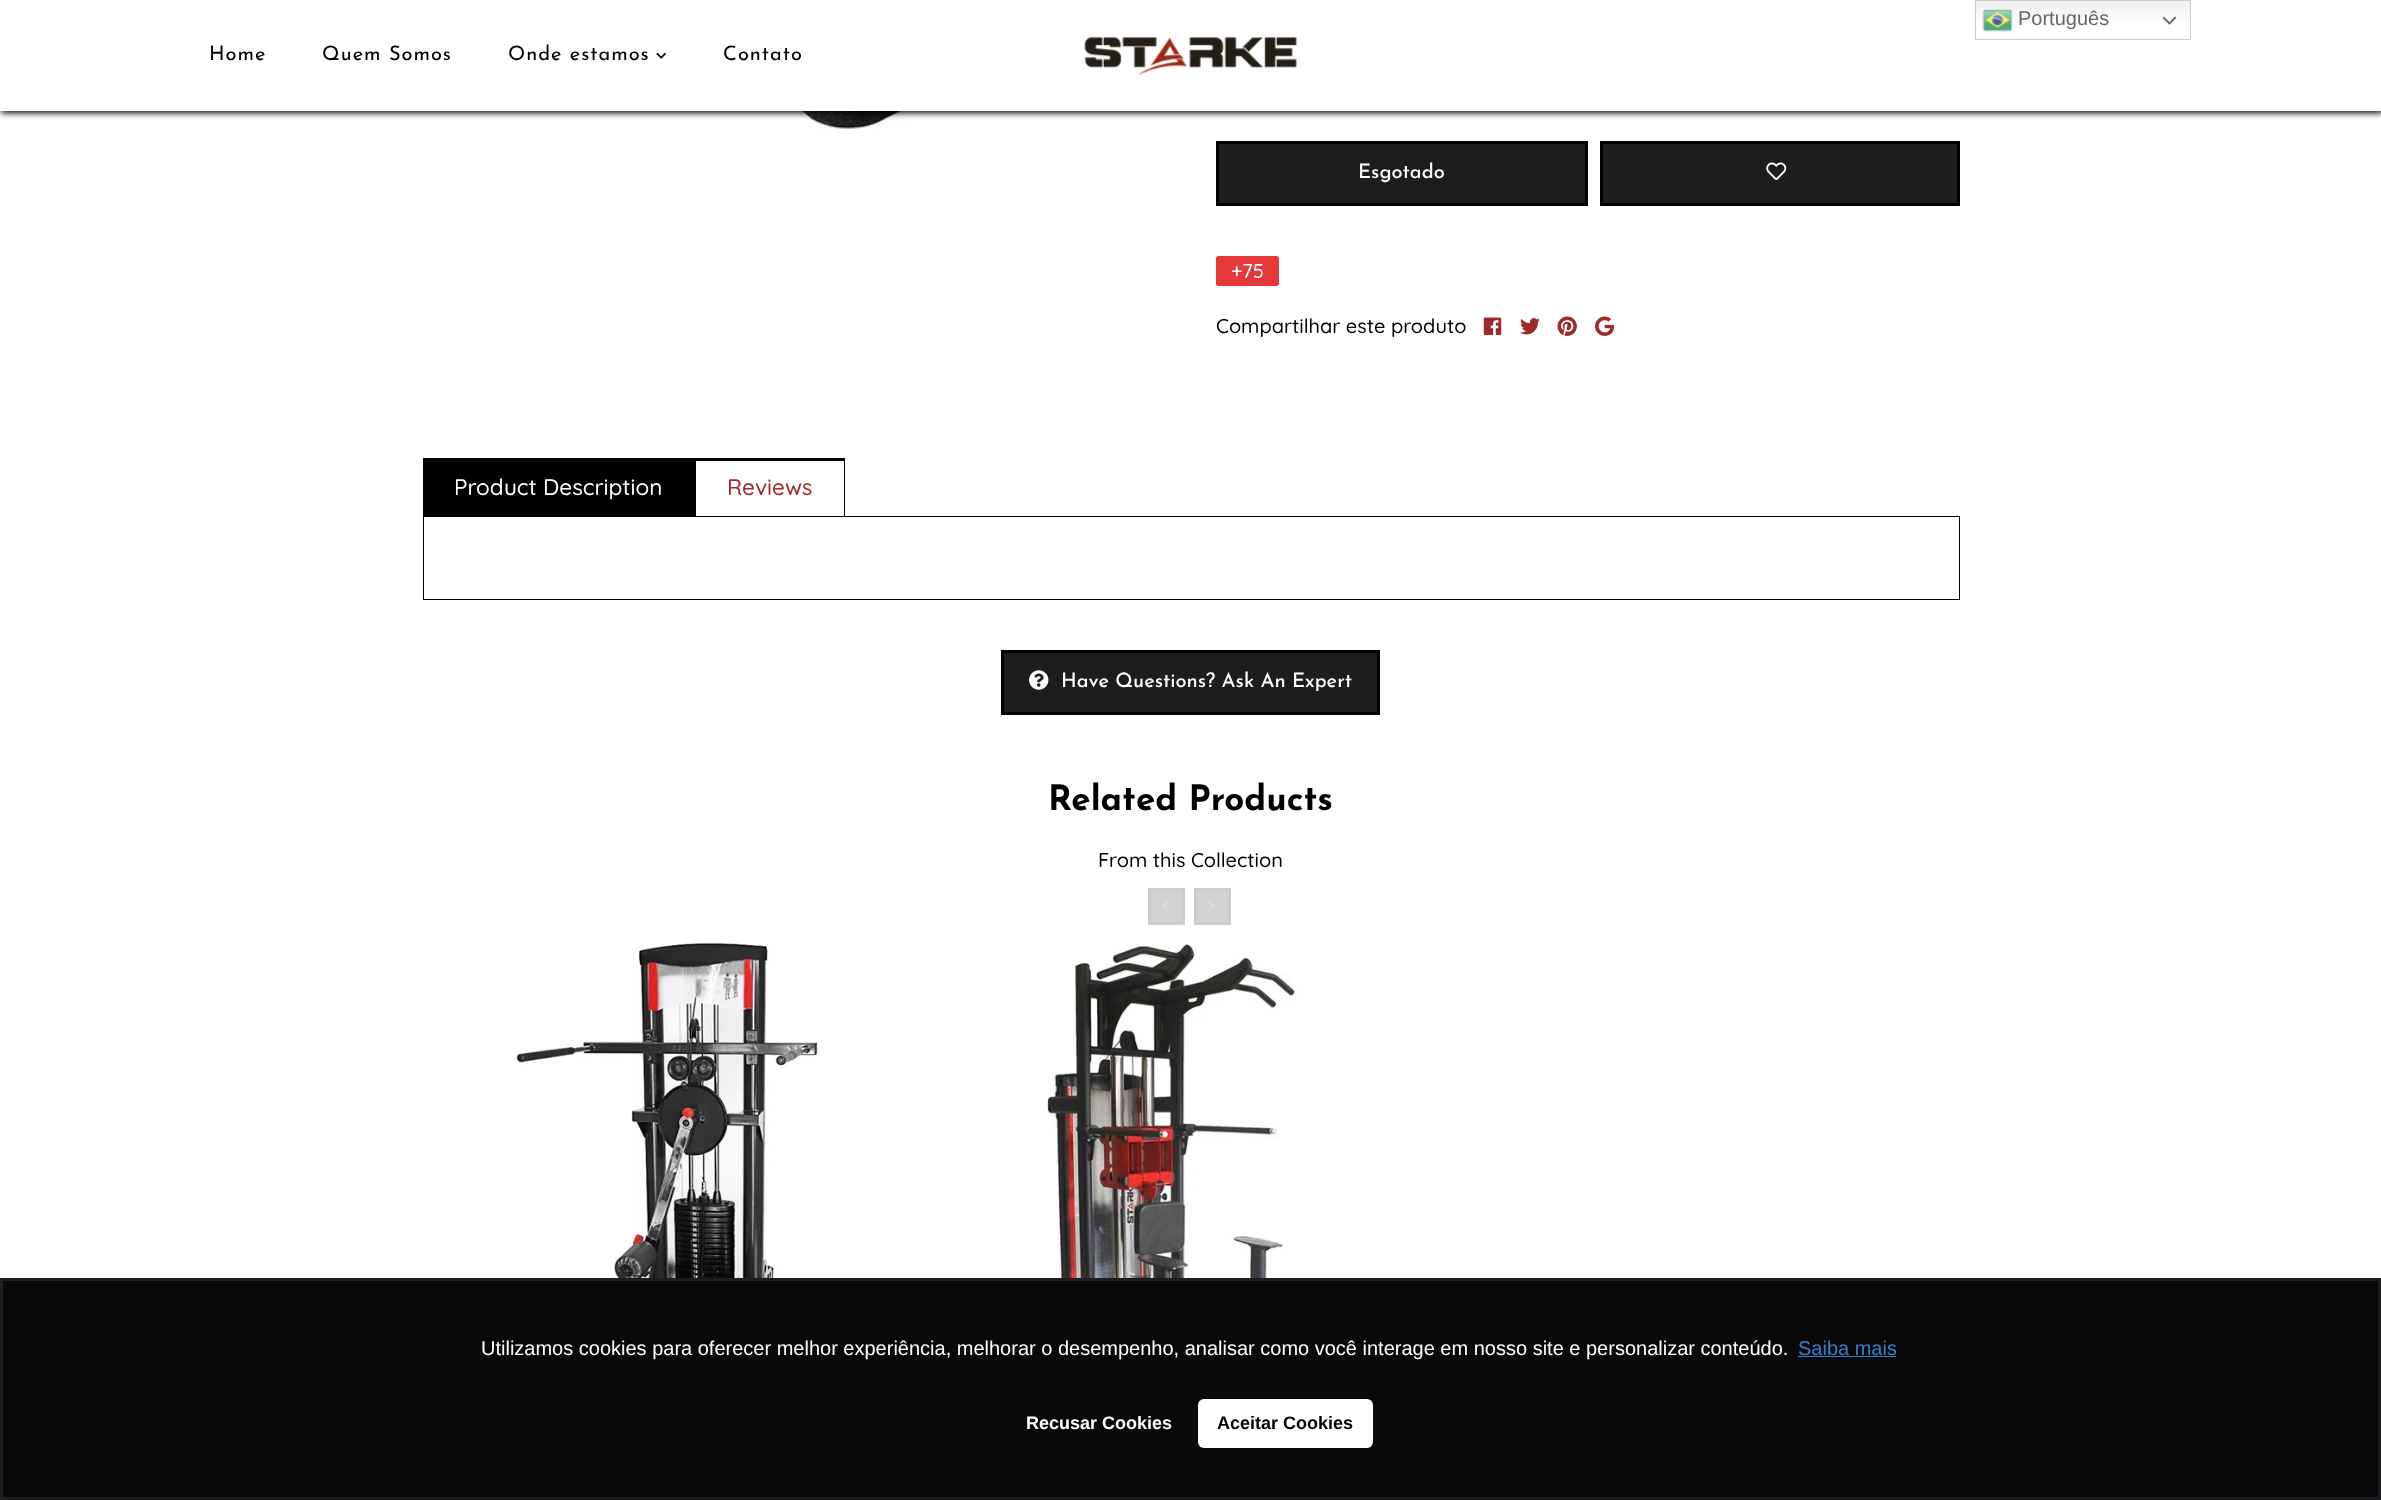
<!DOCTYPE html>
<meta charset="utf-8">
<style>body { margin: 0 } canvas { display: block }</style>
<canvas id="canvas" width="2381" height="1500"></canvas>
<img id="img1" src="img_05.png" hidden>
<img id="img2" src="img_01.png" hidden>
<img id="img3" src="img_02.png" hidden>
<img id="img4" src="img_03.png" hidden>
<img id="img5" src="img_04.png" hidden>
<img id="img6" src="img_06.png" hidden>
<img id="img7" src="img_07.png" hidden>
<img id="img8" src="img_08.png" hidden>
<img id="img9" src="img_09.png" hidden>
<img id="img10" src="img_10.png" hidden>
<img id="img11" src="img_11.png" hidden>
<img id="img12" src="img_12.png" hidden>
<img id="img13" src="img_13.png" hidden>
<img id="img14" src="img_14.png" hidden>
<img id="img15" src="img_15.png" hidden>
<script>
window.onload = function () {
	const canvas = document.getElementById("canvas");
	const ctx = canvas.getContext("2d");
	ctx.miterLimit = 4;
	ctx.fontKerning = "normal";
	function txt(s, x, y) {
		ctx.fillText(s, x, y);
	}
	function fill(x, y, w, h) {
		ctx.fillRect(x, y, w, h);
	}
	function round(x, y, w, h, r) {
		ctx.beginPath();
		ctx.roundRect(x, y, w, h, r);
		ctx.fill();
	}
	function img(id, x, y, w, h) {
		ctx.drawImage(document.getElementById(id), x, y, w, h);
	}
	let gradient;

	ctx.fillStyle = "#FFFFFF";
	fill(0, 0, 2381, 1500);
	img("img1", 749, 111, 350, 18);
	ctx.fillStyle = "#000000";
	ctx.filter = "blur(3px)";
	ctx.beginPath();
	ctx.rect(1, 1, 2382, 112);
	ctx.fill();
	ctx.filter = "none";
	ctx.fillStyle = "#FFFFFF";
	fill(0, 0, 2381, 111);
	gradient = ctx.createLinearGradient(2083, 0, 2083, 40);
	gradient.addColorStop(0, "#EFEFEF");
	gradient.addColorStop(0.7, "#FFFFFF");
	ctx.fillStyle = gradient;
	fill(1976, 1, 214, 23);
	ctx.strokeStyle = "#CCCCCC";
	ctx.strokeRect(1975.5, 0.5, 215, 39);
	img("img2", 1982, 9, 31, 23);
	img("img3", 2163, 16, 13, 9);
	img("img4", 656, 52, 10, 7);
	img("img5", 1084, 37, 213, 39);
	ctx.fillStyle = "#1D1D1B";
	ctx.beginPath();
	ctx.rect(1217.5, 142.5, 369, 62);
	ctx.fill();
	ctx.strokeStyle = "#000000";
	ctx.lineWidth = 3;
	ctx.stroke();
	ctx.beginPath();
	ctx.rect(1601.5, 142.5, 357, 62);
	ctx.fill();
	ctx.stroke();
	img("img6", 1766, 162, 21, 18);
	ctx.fillStyle = "#E53939";
	ctx.beginPath();
	ctx.roundRect(1216, 256, 27, 30, [2.5, 0, 0, 2.5]);
	ctx.fill();
	ctx.beginPath();
	ctx.roundRect(1243, 256, 36, 30, [0, 2.5, 2.5, 0]);
	ctx.fill();
	img("img7", 1483, 317, 19, 18);
	img("img8", 1520, 318, 20, 17);
	img("img9", 1557, 316, 20, 20);
	img("img10", 1595, 316, 20, 20);
	ctx.fillStyle = "#000000";
	fill(423, 458, 273, 58);
	fill(844, 458, 1, 58);
	fill(695, 458, 150, 3);
	ctx.lineWidth = 1;
	ctx.strokeRect(423.5, 516.5, 1536, 83);
	ctx.fillStyle = "#1D1D1B";
	ctx.beginPath();
	ctx.rect(1002.5, 651.5, 376, 62);
	ctx.fill();
	ctx.lineWidth = 3;
	ctx.stroke();
	img("img11", 1029, 670, 20, 20);
	ctx.fillStyle = "#D2D2D1";
	ctx.beginPath();
	ctx.rect(1149.5, 889.5, 34, 34);
	ctx.fill();
	ctx.strokeStyle = "#CCCCCC";
	ctx.stroke();
	img("img12", 1162, 901, 7, 10);
	ctx.beginPath();
	ctx.rect(1195.5, 889.5, 34, 34);
	ctx.fill();
	ctx.stroke();
	img("img13", 1208, 901, 7, 10);
	img("img14", 516, 941, 302, 337);
	img("img15", 1045, 944, 279, 334);
	ctx.fillStyle = "#090909";
	ctx.beginPath();
	ctx.rect(1.5, 1279.5, 2378, 219);
	ctx.fill();
	ctx.strokeStyle = "#1B1D20";
	ctx.stroke();
	ctx.fillStyle = "#357FCE";
	fill(1798, 1356, 98, 1);
	ctx.fillStyle = "#FFFFFF";
	round(1198, 1399, 175, 49, 6);
	ctx.font = "20px Liberation Sans";
	ctx.fillStyle = "#666666";
	txt("Português", 2018, 25);
	ctx.letterSpacing = "1px";
	ctx.font = "20px Josefin Sans";
	ctx.fillStyle = "#000000";
	txt("Home", 209, 60);
	txt("Quem Somos", 322, 60);
	txt("Onde estamos", 508, 60);
	txt("Contato", 723, 60);
	ctx.letterSpacing = "0px";
	ctx.font = "500 20px Josefin Sans";
	ctx.fillStyle = "#FFFFFF";
	txt("Esgotado", 1358, 178);
	ctx.font = "500 20px Quicksand";
	txt("+75", 1231, 278);
	ctx.fillStyle = "#000000";
	txt("Compartilhar este produto", 1216, 333);
	ctx.font = "500 22.5px Quicksand";
	ctx.fillStyle = "#FFFFFF";
	txt("Product Description", 454, 495);
	ctx.fillStyle = "#9E2A2B";
	txt("Reviews", 727, 495);
	ctx.font = "500 20px Josefin Sans";
	ctx.fillStyle = "#FFFFFF";
	txt("Have Questions? Ask An Expert", 1061, 687);
	ctx.font = "bold 35px Josefin Sans";
	ctx.fillStyle = "#000000";
	txt("Related Products", 1048, 810);
	ctx.font = "500 20px Quicksand";
	txt("From this Collection", 1098, 867);
	ctx.font = "20px Liberation Sans";
	ctx.fillStyle = "#FFFFFF";
	txt("Utilizamos cookies para oferecer melhor experiência, melhorar o desempenho, analisar como você interage em nosso site e personalizar conteúdo.", 481, 1355);
	ctx.fillStyle = "#357FCE";
	txt("Saiba mais", 1798, 1355);
	ctx.font = "bold 18px Liberation Sans";
	ctx.fillStyle = "#FFFFFF";
	txt("Recusar Cookies", 1026, 1429);
	ctx.fillStyle = "#000000";
	txt("Aceitar Cookies", 1217, 1429);
};
</script>
